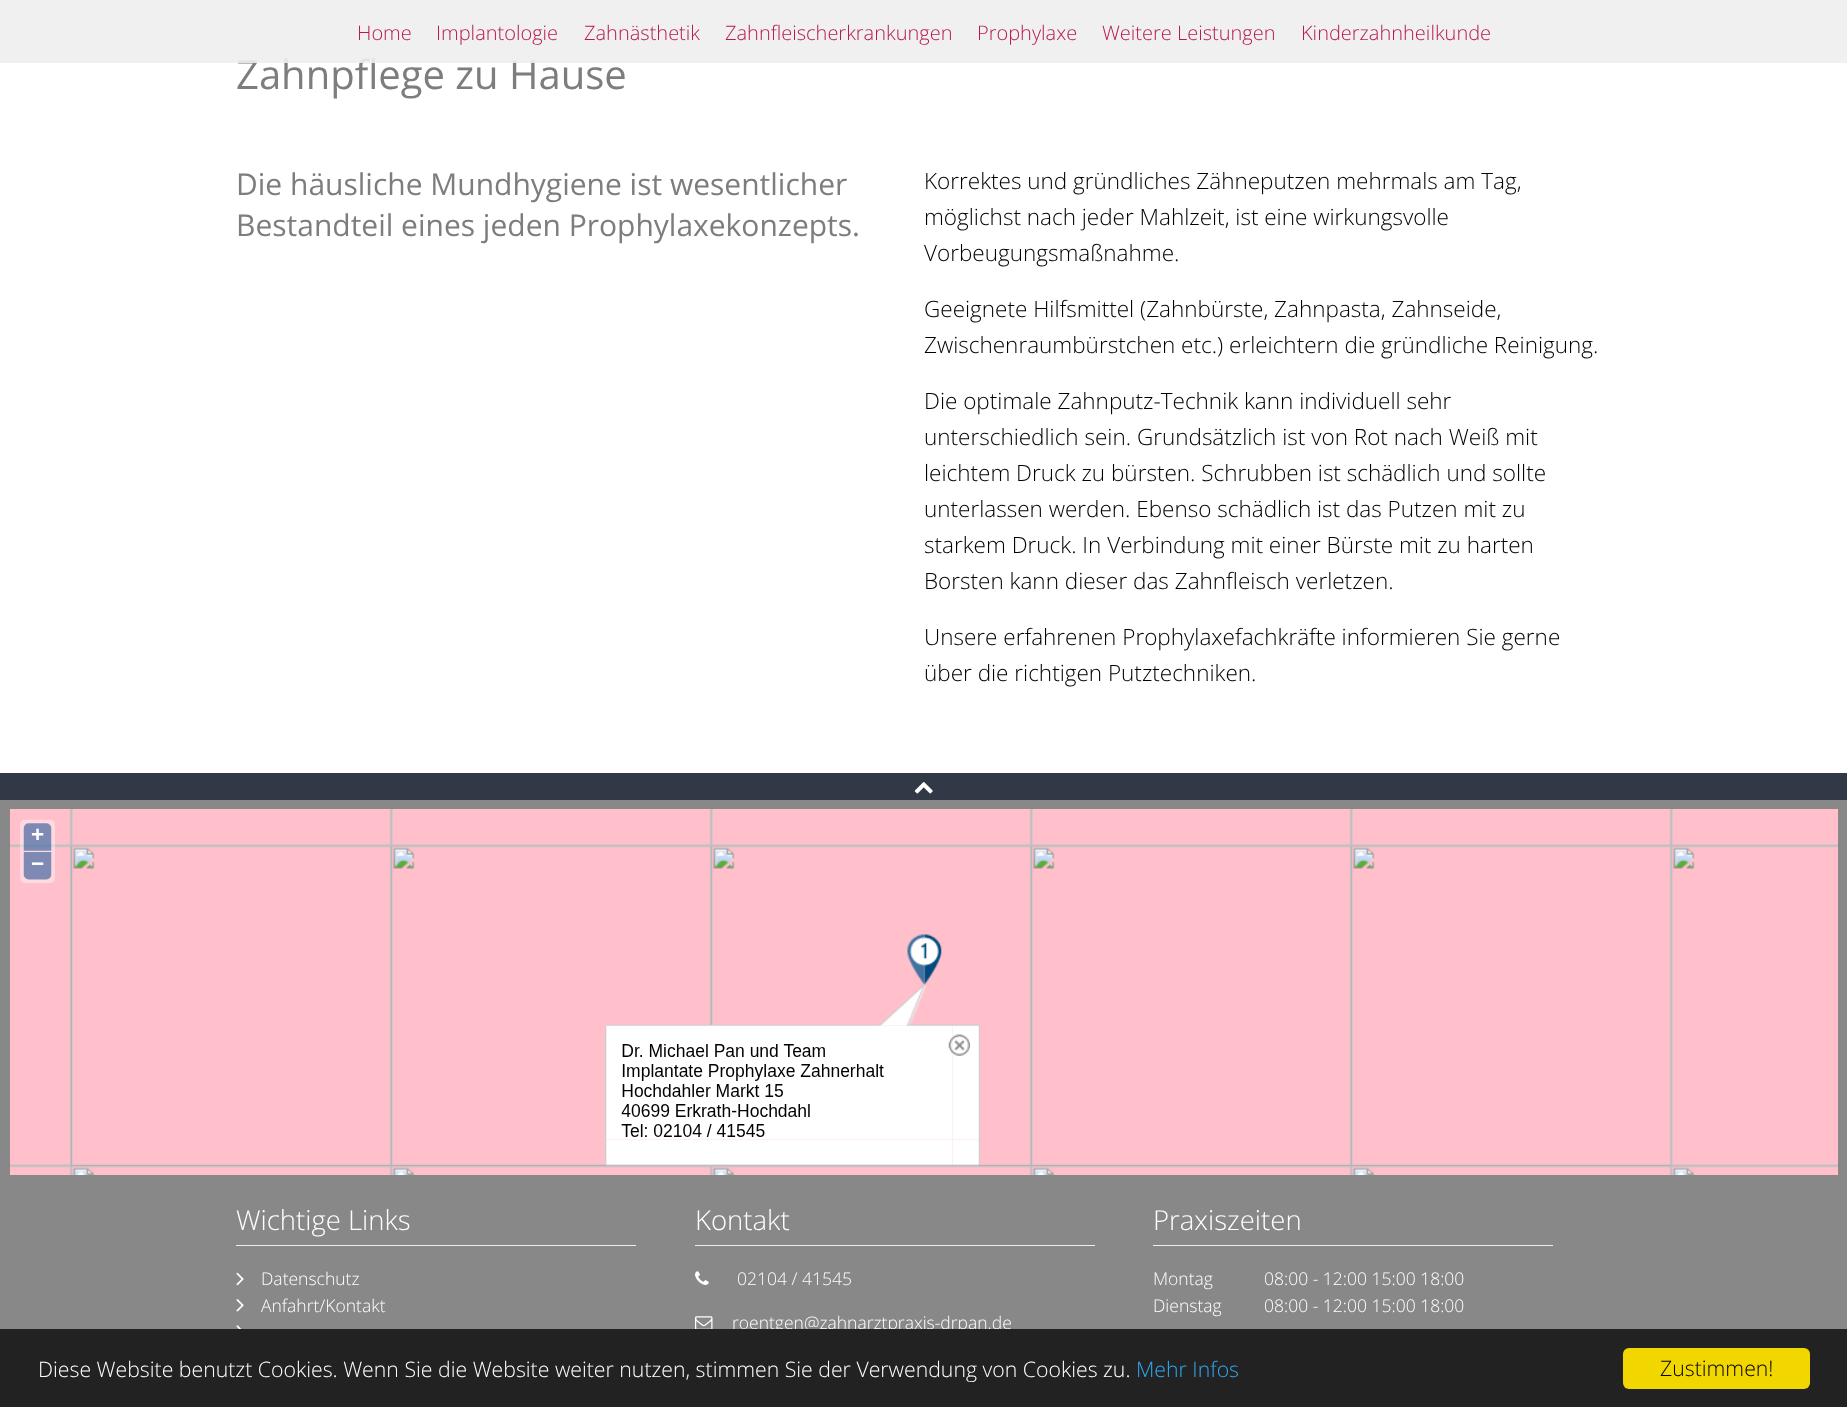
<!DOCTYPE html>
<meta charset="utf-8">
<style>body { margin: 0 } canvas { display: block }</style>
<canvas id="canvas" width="1847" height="1407"></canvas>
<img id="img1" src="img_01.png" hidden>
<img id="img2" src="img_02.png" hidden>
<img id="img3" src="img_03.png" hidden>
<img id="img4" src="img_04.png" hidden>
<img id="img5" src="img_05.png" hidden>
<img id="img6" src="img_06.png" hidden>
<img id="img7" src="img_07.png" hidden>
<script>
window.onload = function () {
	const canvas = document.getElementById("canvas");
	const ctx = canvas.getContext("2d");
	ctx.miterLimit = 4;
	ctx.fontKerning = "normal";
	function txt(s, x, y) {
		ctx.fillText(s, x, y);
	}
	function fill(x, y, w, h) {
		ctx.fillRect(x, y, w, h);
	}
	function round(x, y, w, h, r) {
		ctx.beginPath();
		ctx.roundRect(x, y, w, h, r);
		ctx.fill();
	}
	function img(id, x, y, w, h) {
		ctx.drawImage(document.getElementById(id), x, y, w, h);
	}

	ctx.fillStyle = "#FFFFFF";
	fill(0, 0, 1847, 1407);
	ctx.fillStyle = "#323946";
	fill(0, 773, 1847, 27);
	img("img1", 914, 782, 19, 12);
	ctx.fillStyle = "#888888";
	fill(0, 800, 1847, 529);
	img("img2", 10, 809, 1828, 366);
	ctx.fillStyle = "#EEEEEE";
	fill(236, 1245, 400, 1);
	img("img3", 236, 1272, 8, 14);
	img("img4", 236, 1299, 8, 13);
	img("img5", 236, 1325, 6, 4);
	fill(695, 1245, 400, 1);
	img("img6", 695, 1271, 14, 14);
	img("img7", 695, 1316, 18, 13);
	fill(1153, 1245, 400, 1);
	ctx.font = "40px Open Sans";
	ctx.fillStyle = "#7E7D7D";
	txt("Zahnpflege zu Hause", 236, 89);
	ctx.fillStyle = "rgba(238, 238, 238, 0.9)";
	fill(0, 0, 1847, 63);
	ctx.font = "300 20px Open Sans";
	ctx.fillStyle = "#B81A4A";
	txt("Kinderzahnheilkunde", 1301, 40);
	txt("Weitere Leistungen", 1102, 40);
	txt("Prophylaxe", 977, 40);
	txt("Zahnfleischerkrankungen", 725, 40);
	txt("Zahnästhetik", 584, 40);
	txt("Implantologie", 436, 40);
	txt("Home", 357, 40);
	ctx.font = "30px Open Sans";
	ctx.fillStyle = "#7E7D7D";
	txt("Die häusliche Mundhygiene ist wesentlicher", 236, 195);
	txt("Bestandteil eines jeden Prophylaxekonzepts.", 236, 236);
	ctx.font = "300 22.5px Open Sans";
	ctx.fillStyle = "#000000";
	txt("Korrektes und gründliches Zähneputzen mehrmals am Tag,", 924, 189);
	txt("möglichst nach jeder Mahlzeit, ist eine wirkungsvolle", 924, 225);
	txt("Vorbeugungsmaßnahme.", 924, 261);
	txt("Geeignete Hilfsmittel (Zahnbürste, Zahnpasta, Zahnseide,", 924, 317);
	txt("Zwischenraumbürstchen etc.) erleichtern die gründliche Reinigung.", 924, 353);
	txt("Die optimale Zahnputz-Technik kann individuell sehr", 924, 409);
	txt("unterschiedlich sein. Grundsätzlich ist von Rot nach Weiß mit", 924, 445);
	txt("leichtem Druck zu bürsten. Schrubben ist schädlich und sollte", 924, 481);
	txt("unterlassen werden. Ebenso schädlich ist das Putzen mit zu", 924, 517);
	txt("starkem Druck. In Verbindung mit einer Bürste mit zu harten", 924, 553);
	txt("Borsten kann dieser das Zahnfleisch verletzen.", 924, 589);
	txt("Unsere erfahrenen Prophylaxefachkräfte informieren Sie gerne", 924, 645);
	txt("über die richtigen Putztechniken.", 924, 681);
	ctx.font = "300 27.5px Open Sans";
	ctx.fillStyle = "#FFFFFF";
	txt("Wichtige Links", 236, 1230);
	ctx.font = "300 17.5px Open Sans";
	txt("Datenschutz", 261, 1285);
	txt("Anfahrt/Kontakt", 261, 1312);
	ctx.font = "300 27.5px Open Sans";
	txt("Kontakt", 695, 1230);
	ctx.font = "300 17.5px Open Sans";
	txt("02104 / 41545", 737, 1285);
	txt("roentgen@zahnarztpraxis-drpan.de", 732, 1329);
	ctx.font = "300 27.5px Open Sans";
	txt("Praxiszeiten", 1153, 1230);
	ctx.font = "300 17.5px Open Sans";
	txt("Montag", 1153, 1285);
	txt("Dienstag", 1153, 1312);
	txt("08:00 - 12:00 15:00 18:00", 1264, 1285);
	txt("08:00 - 12:00 15:00 18:00", 1264, 1312);
	ctx.fillStyle = "#222222";
	fill(0, 1329, 1847, 78);
	ctx.font = "300 21.25px Open Sans";
	ctx.fillStyle = "#FFFFFF";
	txt("Diese Website benutzt Cookies. Wenn Sie die Website weiter nutzen, stimmen Sie der Verwendung von Cookies zu.", 38, 1377);
	ctx.fillStyle = "#31A8F0";
	txt("Mehr Infos", 1136, 1377);
	ctx.fillStyle = "#F1D600";
	round(1623, 1348, 187, 41, 6);
	ctx.fillStyle = "#000000";
	txt("Zustimmen!", 1660, 1376);
};
</script>
